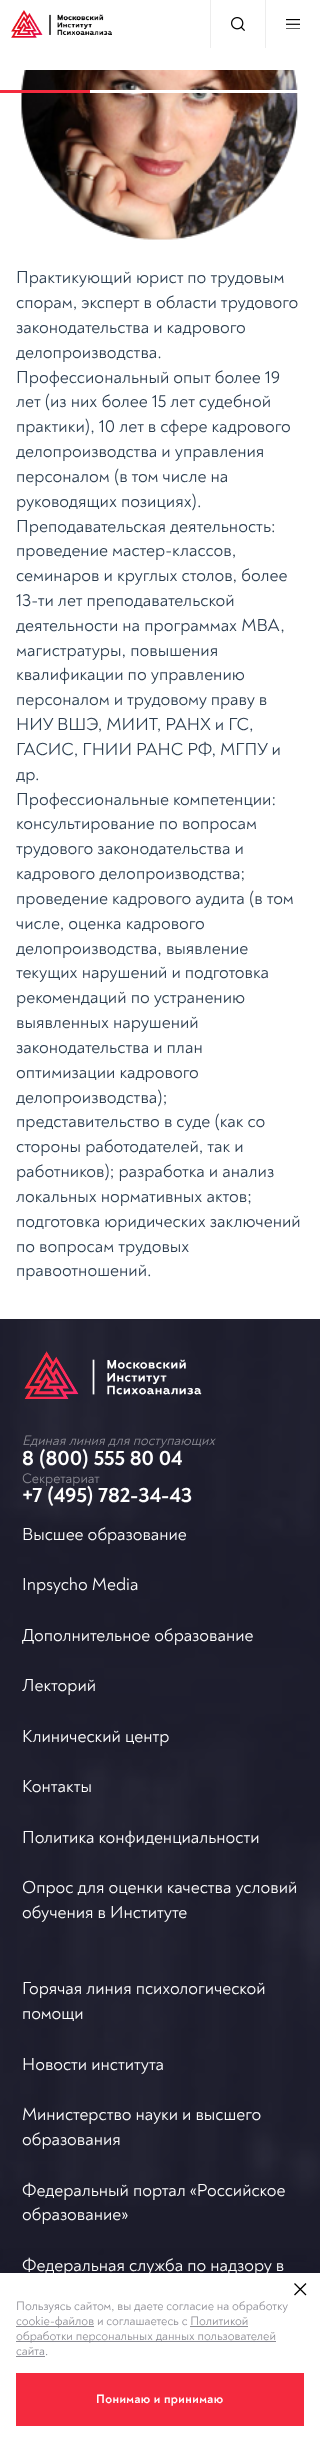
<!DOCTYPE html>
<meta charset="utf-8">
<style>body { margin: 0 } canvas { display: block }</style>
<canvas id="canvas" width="320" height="2446"></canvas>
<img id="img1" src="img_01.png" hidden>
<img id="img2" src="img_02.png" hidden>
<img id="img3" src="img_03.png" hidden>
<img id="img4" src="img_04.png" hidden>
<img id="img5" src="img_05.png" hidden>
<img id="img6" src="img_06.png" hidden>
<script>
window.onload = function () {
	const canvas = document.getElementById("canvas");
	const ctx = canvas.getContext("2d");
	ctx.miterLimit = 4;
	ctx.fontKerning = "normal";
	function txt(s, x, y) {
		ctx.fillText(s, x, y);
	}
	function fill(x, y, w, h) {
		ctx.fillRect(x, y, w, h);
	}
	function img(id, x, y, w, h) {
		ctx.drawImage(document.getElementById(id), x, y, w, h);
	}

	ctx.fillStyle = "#FFFFFF";
	fill(0, 0, 320, 2446);
	img("img1", 11, 10, 101, 28);
	ctx.fillStyle = "#EDEDED";
	fill(210, 0, 1, 48);
	img("img2", 231, 17, 14, 14);
	fill(265, 0, 1, 48);
	img("img3", 286, 19, 14, 10);
	img("img4", 21, 70, 277, 170);
	ctx.fillStyle = "#FFFFFF";
	fill(90, 90, 208, 3);
	ctx.fillStyle = "#F42A3E";
	fill(0, 90, 90, 3);
	img("img5", 0, 1319, 320, 954);
	img("img6", 24, 1351, 178, 48);
	ctx.fillStyle = "rgba(9, 12, 31, 0.2)";
	ctx.filter = "blur(10px)";
	ctx.beginPath();
	ctx.rect(0, 2269, 320, 173);
	ctx.fill();
	ctx.filter = "none";
	ctx.fillStyle = "#FFFFFF";
	fill(0, 2273, 320, 173);
	ctx.beginPath();
	ctx.moveTo(294.5, 2283.5);
	ctx.lineTo(306, 2295);
	ctx.moveTo(306, 2283.5);
	ctx.lineTo(294.5, 2295);
	ctx.strokeStyle = "#000000";
	ctx.lineWidth = 1.3;
	ctx.stroke();
	ctx.fillStyle = "#8A8A93";
	fill(16, 2326, 78, 1);
	fill(16, 2341, 260, 1);
	fill(16, 2356, 29, 1);
	ctx.fillStyle = "#F42A3E";
	fill(16, 2373, 288, 53);
	ctx.font = "17.75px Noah";
	ctx.fillStyle = "#2C3E50";
	txt("Практикующий юрист по трудовым", 16, 283);
	txt("спорам, эксперт в области трудового", 16, 308);
	txt("законодательства и кадрового", 16, 333);
	txt("делопроизводства.", 16, 358);
	txt("Профессиональный опыт более 19", 16, 383);
	txt("лет (из них более 15 лет судебной", 16, 407);
	txt("практики), 10 лет в сфере кадрового", 16, 432);
	txt("делопроизводства и управления", 16, 457);
	txt("персоналом (в том числе на", 16, 482);
	txt("руководящих позициях).", 16, 507);
	txt("Преподавательская деятельность:", 16, 532);
	txt("проведение мастер-классов,", 16, 556);
	txt("семинаров и круглых столов, более", 16, 581);
	txt("13-ти лет преподавательской", 16, 606);
	txt("деятельности на программах MBA,", 16, 631);
	txt("магистратуры, повышения", 16, 656);
	txt("квалификации по управлению", 16, 680);
	txt("персоналом и трудовому праву в", 16, 705);
	txt("НИУ ВШЭ, МИИТ, РАНХ и ГС,", 16, 730);
	txt("ГАСИС, ГНИИ РАНС РФ, МГПУ и", 16, 755);
	txt("др.", 16, 780);
	txt("Профессиональные компетенции:", 16, 805);
	txt("консультирование по вопросам", 16, 829);
	txt("трудового законодательства и", 16, 854);
	txt("кадрового делопроизводства;", 16, 879);
	txt("проведение кадрового аудита (в том", 16, 904);
	txt("числе, оценка кадрового", 16, 929);
	txt("делопроизводства, выявление", 16, 954);
	txt("текущих нарушений и подготовка", 16, 978);
	txt("рекомендаций по устранению", 16, 1003);
	txt("выявленных нарушений", 16, 1028);
	txt("законодательства и план", 16, 1053);
	txt("оптимизации кадрового", 16, 1078);
	txt("делопроизводства);", 16, 1103);
	txt("представительство в суде (как со", 16, 1127);
	txt("стороны работодателей, так и", 16, 1152);
	txt("работников); разработка и анализ", 16, 1177);
	txt("локальных нормативных актов;", 16, 1202);
	txt("подготовка юридических заключений", 16, 1227);
	txt("по вопросам трудовых", 16, 1252);
	txt("правоотношений.", 16, 1276);
	ctx.font = "italic 14.1px Noah";
	ctx.fillStyle = "#8D8D95";
	txt("Единая линия для поступающих", 22, 1445);
	ctx.font = "bold 21.25px Noah";
	ctx.fillStyle = "#FFFFFF";
	txt("8 (800) 555 80 04", 22, 1465);
	ctx.font = "14.1px Noah";
	ctx.fillStyle = "#8D8D95";
	txt("Секретариат", 22, 1483);
	ctx.font = "bold 21.25px Noah";
	ctx.fillStyle = "#FFFFFF";
	txt("+7 (495) 782-34-43", 22, 1502);
	ctx.font = "17.7px Noah";
	txt("Высшее образование", 22, 1540);
	txt("Inpsycho Media", 22, 1590);
	txt("Дополнительное образование", 22, 1641);
	txt("Лекторий", 22, 1691);
	txt("Клинический центр", 22, 1742);
	txt("Контакты", 22, 1792);
	txt("Политика конфиденциальности", 22, 1843);
	txt("Опрос для оценки качества условий", 22, 1893);
	txt("обучения в Институте", 22, 1918);
	txt("Горячая линия психологической", 22, 1994);
	txt("помощи", 22, 2019);
	txt("Новости института", 22, 2070);
	txt("Министерство науки и высшего", 22, 2120);
	txt("образования", 22, 2145);
	txt("Федеральный портал «Российское", 22, 2196);
	txt("образование»", 22, 2220);
	txt("Федеральная служба по надзору в", 22, 2271);
	ctx.font = "12.45px Noah";
	ctx.fillStyle = "#8D8D95";
	txt("Пользуясь сайтом, вы даете согласие на обработку", 16, 2310);
	txt("cookie-файлов и соглашаетесь с Политикой", 16, 2325);
	txt("обработки персональных данных пользователей", 16, 2340);
	ctx.fillStyle = "#8A8A93";
	fill(190, 2326, 58, 1);
	ctx.fillStyle = "#8D8D95";
	txt("сайта.", 16, 2355);
	ctx.letterSpacing = "0.4px";
	ctx.font = "bold 12.45px Noah";
	ctx.fillStyle = "#FFFFFF";
	txt("Понимаю и принимаю", 96, 2403);
};
</script>
